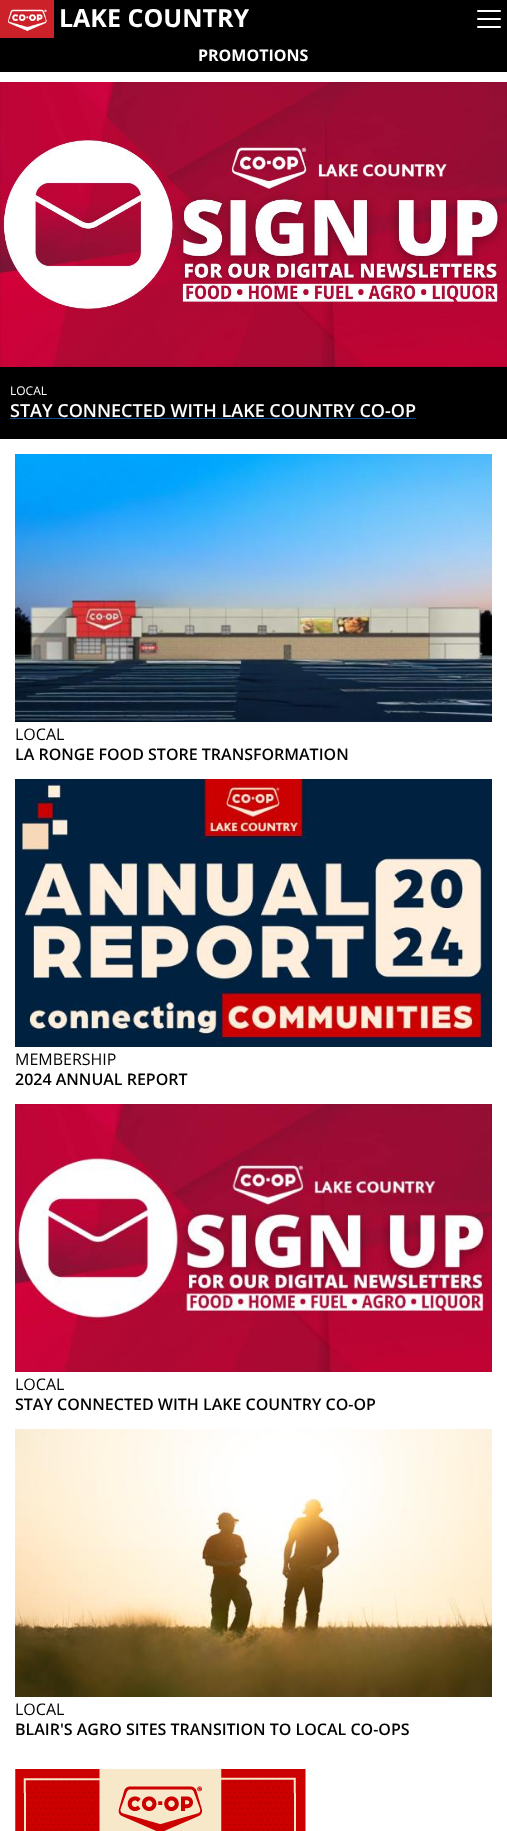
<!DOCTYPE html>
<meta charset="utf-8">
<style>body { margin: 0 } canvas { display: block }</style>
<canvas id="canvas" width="507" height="1831"></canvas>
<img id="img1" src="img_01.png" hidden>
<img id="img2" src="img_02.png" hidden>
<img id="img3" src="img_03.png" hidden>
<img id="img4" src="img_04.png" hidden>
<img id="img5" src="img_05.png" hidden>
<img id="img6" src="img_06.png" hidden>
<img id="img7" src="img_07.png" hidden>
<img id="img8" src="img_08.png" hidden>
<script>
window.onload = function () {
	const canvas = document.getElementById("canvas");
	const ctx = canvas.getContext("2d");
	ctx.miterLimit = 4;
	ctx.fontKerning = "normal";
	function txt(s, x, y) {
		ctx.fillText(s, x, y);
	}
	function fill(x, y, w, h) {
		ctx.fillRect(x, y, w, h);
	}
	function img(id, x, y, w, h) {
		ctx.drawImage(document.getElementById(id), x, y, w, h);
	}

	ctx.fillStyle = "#000000";
	fill(0, 0, 507, 1831);
	img("img1", 0, 0, 54, 38);
	img("img2", 477, 10, 24, 18);
	ctx.fillStyle = "#FFFFFF";
	fill(0, 72, 507, 1759);
	img("img3", 0, 82, 507, 285);
	ctx.fillStyle = "#000000";
	fill(0, 367, 507, 72);
	ctx.fillStyle = "#10498F";
	fill(10, 418, 406, 1);
	img("img4", 15, 454, 477, 268);
	img("img5", 15, 779, 477, 268);
	img("img6", 15, 1104, 477, 268);
	img("img7", 15, 1429, 477, 268);
	img("img8", 15, 1769, 291, 62);
	ctx.font = "bold 25px Open Sans";
	ctx.fillStyle = "#FFFFFF";
	txt("LAKE COUNTRY", 59, 27);
	ctx.font = "bold 16px Open Sans";
	txt("PROMOTIONS", 198, 61);
	ctx.font = "12px Open Sans";
	txt("LOCAL", 10, 395);
	ctx.font = "600 18px Open Sans";
	txt("STAY CONNECTED WITH LAKE COUNTRY CO-OP", 10, 417);
	ctx.font = "16px Open Sans";
	ctx.fillStyle = "#000000";
	txt("LOCAL", 15, 740);
	ctx.font = "600 16px Open Sans";
	txt("LA RONGE FOOD STORE TRANSFORMATION", 15, 760);
	ctx.font = "16px Open Sans";
	txt("MEMBERSHIP", 15, 1065);
	ctx.font = "600 16px Open Sans";
	txt("2024 ANNUAL REPORT", 15, 1085);
	ctx.font = "16px Open Sans";
	txt("LOCAL", 15, 1390);
	ctx.font = "600 16px Open Sans";
	txt("STAY CONNECTED WITH LAKE COUNTRY CO-OP", 15, 1410);
	ctx.font = "16px Open Sans";
	txt("LOCAL", 15, 1715);
	ctx.font = "600 16px Open Sans";
	txt("BLAIR'S AGRO SITES TRANSITION TO LOCAL CO-OPS", 15, 1735);
};
</script>
